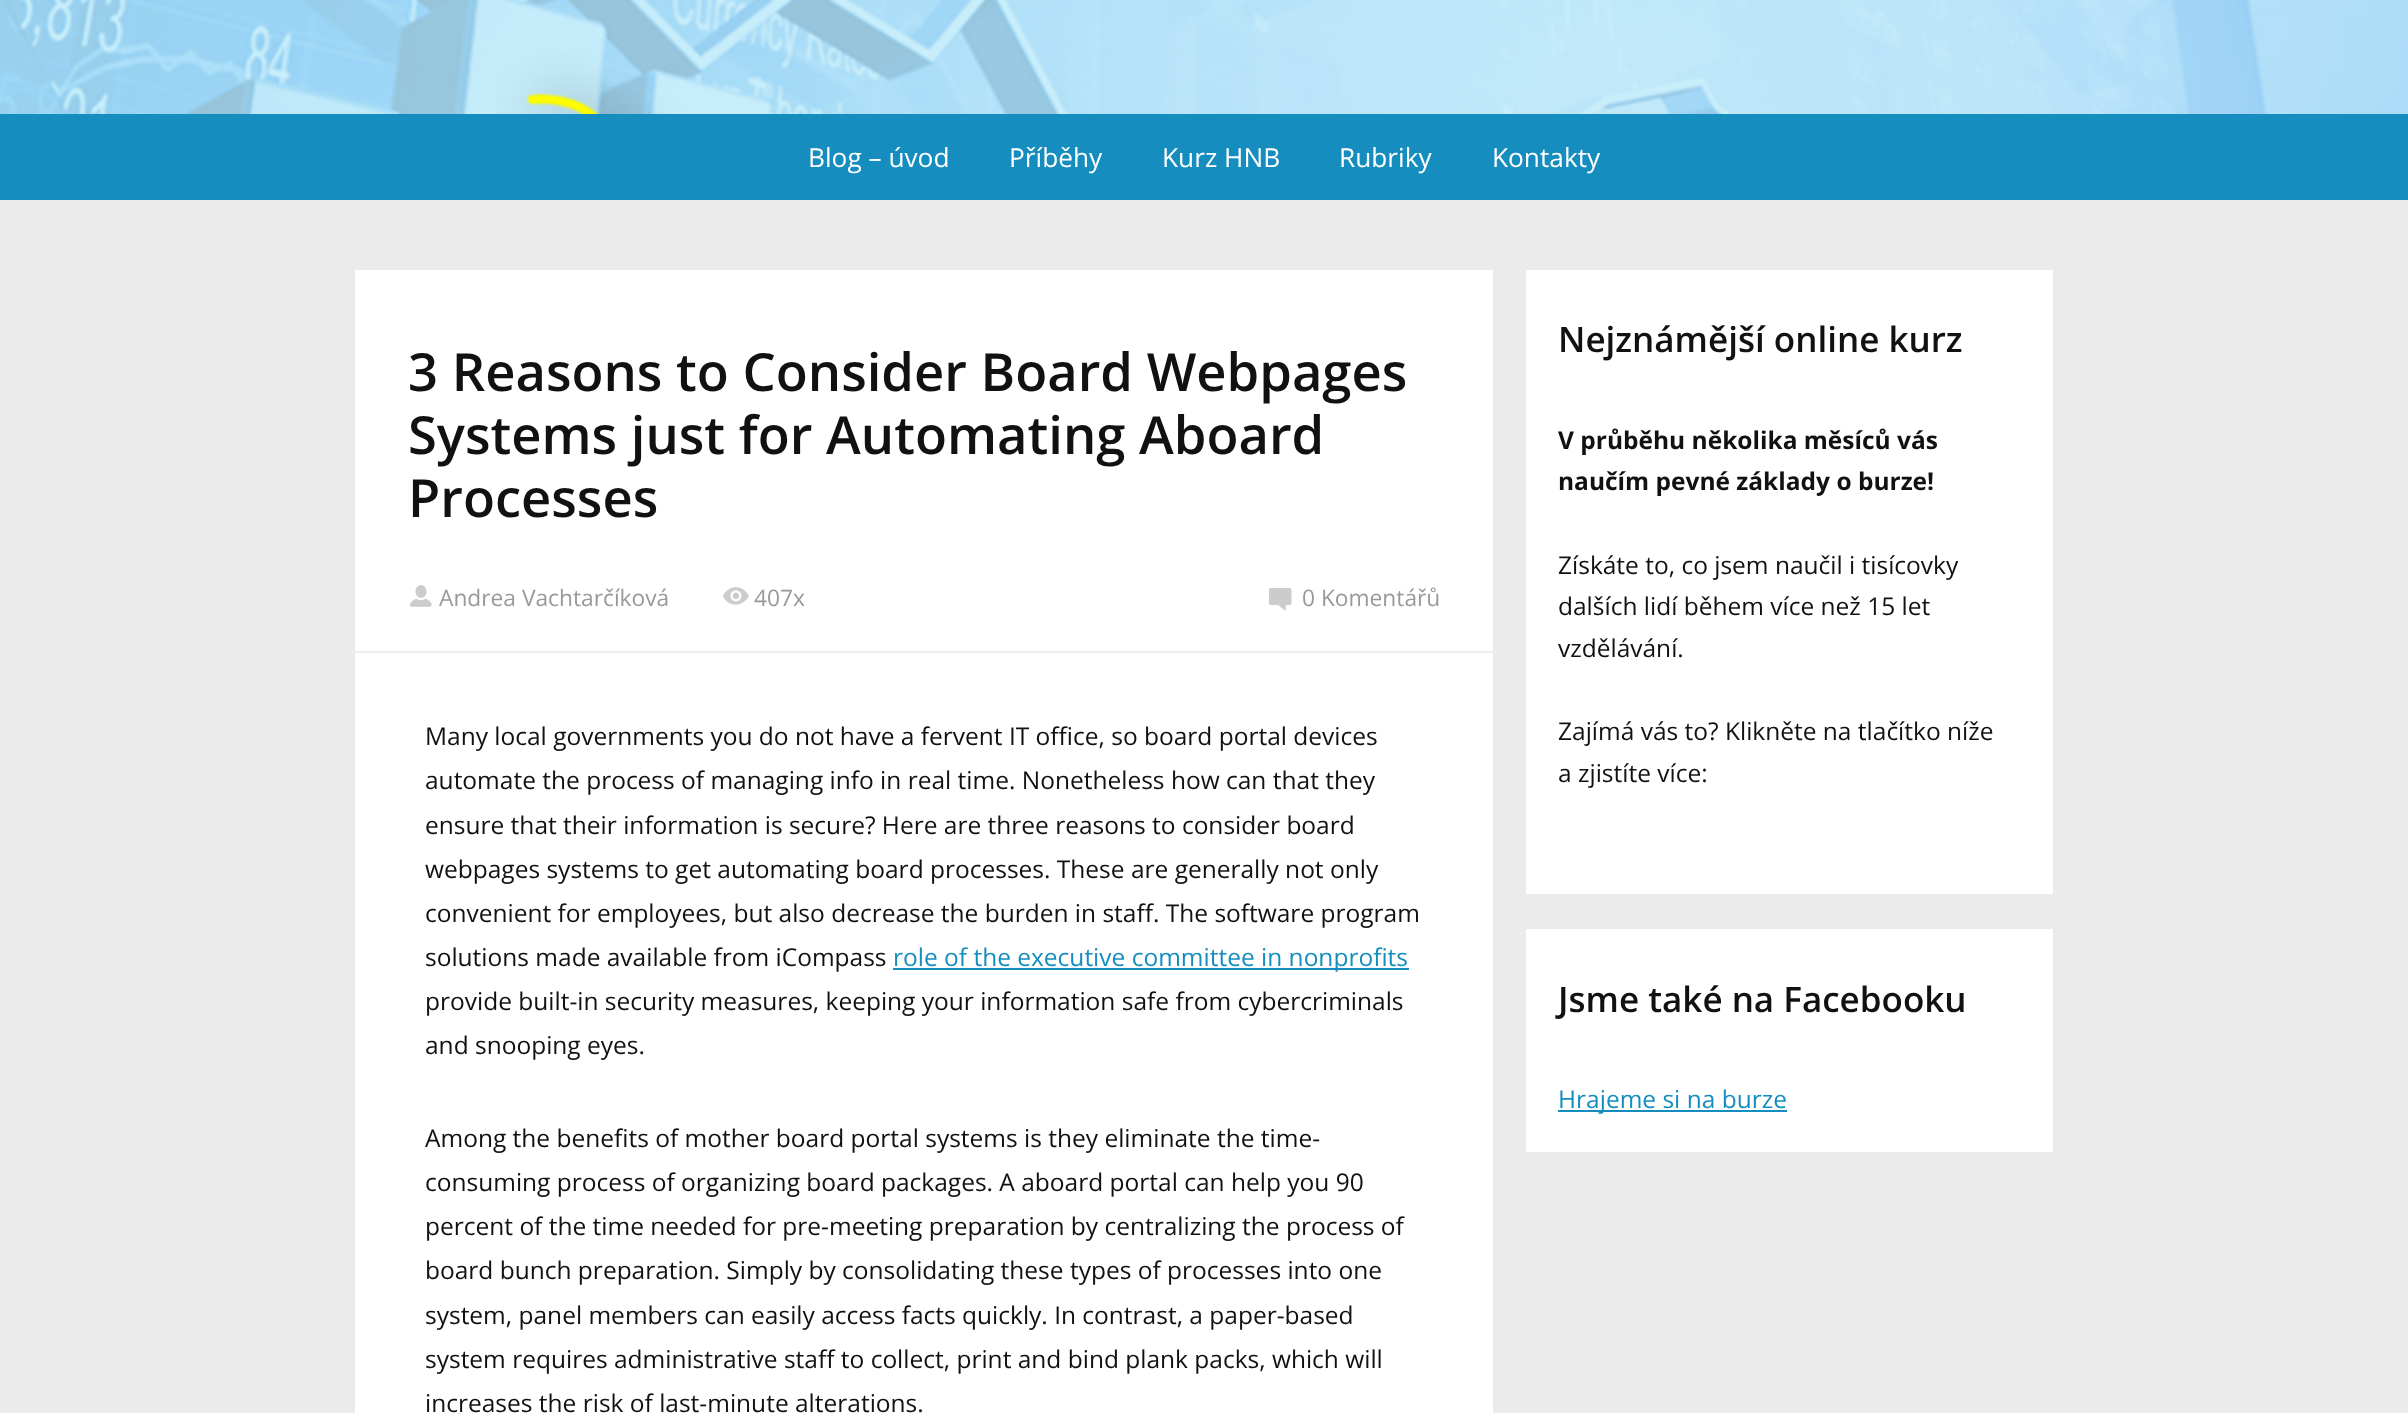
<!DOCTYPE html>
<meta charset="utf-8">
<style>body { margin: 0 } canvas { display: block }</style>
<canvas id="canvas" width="2408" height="1413"></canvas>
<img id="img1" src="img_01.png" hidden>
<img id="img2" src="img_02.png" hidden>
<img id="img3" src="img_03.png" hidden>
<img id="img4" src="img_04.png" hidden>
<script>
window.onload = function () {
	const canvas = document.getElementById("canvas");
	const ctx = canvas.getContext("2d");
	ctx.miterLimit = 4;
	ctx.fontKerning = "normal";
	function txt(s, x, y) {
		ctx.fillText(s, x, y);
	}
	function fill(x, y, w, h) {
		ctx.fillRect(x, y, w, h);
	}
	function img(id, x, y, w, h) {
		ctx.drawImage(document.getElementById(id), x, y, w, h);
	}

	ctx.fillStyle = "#EBEBEB";
	fill(0, 0, 2408, 1413);
	img("img1", 0, 0, 2408, 114);
	ctx.fillStyle = "#158EBF";
	fill(0, 114, 2408, 86);
	ctx.fillStyle = "#FFFFFF";
	fill(355, 270, 1138, 381);
	img("img2", 410, 585, 22, 22);
	img("img3", 723, 587, 26, 18);
	img("img4", 1269, 588, 23, 23);
	fill(355, 653, 1138, 760);
	ctx.fillStyle = "#EEEEEE";
	fill(355, 651, 1138, 2);
	ctx.fillStyle = "#158EBF";
	fill(893, 968, 516, 2);
	ctx.fillStyle = "#FFFFFF";
	fill(1526, 270, 527, 624);
	fill(1526, 929, 527, 223);
	ctx.fillStyle = "#158EBF";
	fill(1558, 1110, 229, 2);
	ctx.font = "26.25px Open Sans";
	ctx.fillStyle = "#FFFFFF";
	txt("Blog – úvod", 808, 167);
	txt("Příběhy", 1009, 167);
	txt("Kurz HNB", 1162, 167);
	txt("Rubriky", 1339, 167);
	txt("Kontakty", 1492, 167);
	ctx.font = "600 52.5px Open Sans";
	ctx.fillStyle = "#111111";
	txt("3 Reasons to Consider Board Webpages", 408, 391);
	txt("Systems just for Automating Aboard", 408, 454);
	txt("Processes", 408, 517);
	ctx.font = "22.75px Open Sans";
	ctx.fillStyle = "#999999";
	txt("Andrea Vachtarčíková", 439, 606);
	txt("407x", 754, 606);
	txt("0 Komentářů", 1302, 606);
	ctx.font = "24.5px Open Sans";
	ctx.fillStyle = "#111111";
	txt("Many local governments you do not have a fervent IT office, so board portal devices", 425, 745);
	txt("automate the process of managing info in real time. Nonetheless how can that they", 425, 789);
	txt("ensure that their information is secure? Here are three reasons to consider board", 425, 834);
	txt("webpages systems to get automating board processes. These are generally not only", 425, 878);
	txt("convenient for employees, but also decrease the burden in staff. The software program", 425, 922);
	txt("solutions made available from iCompass", 425, 966);
	ctx.fillStyle = "#158EBF";
	txt("role of the executive committee in nonprofits", 893, 966);
	ctx.fillStyle = "#111111";
	txt("provide built-in security measures, keeping your information safe from cybercriminals", 425, 1010);
	txt("and snooping eyes.", 425, 1054);
	txt("Among the benefits of mother board portal systems is they eliminate the time-", 425, 1147);
	txt("consuming process of organizing board packages. A aboard portal can help you 90", 425, 1191);
	txt("percent of the time needed for pre-meeting preparation by centralizing the process of", 425, 1235);
	txt("board bunch preparation. Simply by consolidating these types of processes into one", 425, 1279);
	txt("system, panel members can easily access facts quickly. In contrast, a paper-based", 425, 1324);
	txt("system requires administrative staff to collect, print and bind plank packs, which will", 425, 1368);
	txt("increases the risk of last-minute alterations.", 425, 1412);
	ctx.font = "600 35px Open Sans";
	txt("Nejznámější online kurz", 1558, 352);
	ctx.font = "bold 24.5px Open Sans";
	txt("V průběhu několika měsíců vás", 1558, 449);
	txt("naučím pevné základy o burze!", 1558, 490);
	ctx.font = "24.5px Open Sans";
	txt("Získáte to, co jsem naučil i tisícovky", 1558, 574);
	txt("dalších lidí během více než 15 let", 1558, 615);
	txt("vzdělávání.", 1558, 657);
	txt("Zajímá vás to? Klikněte na tlačítko níže", 1558, 740);
	txt("a zjistíte více:", 1558, 782);
	ctx.font = "600 35px Open Sans";
	txt("Jsme také na Facebooku", 1558, 1012);
	ctx.font = "24.5px Open Sans";
	ctx.fillStyle = "#158EBF";
	txt("Hrajeme si na burze", 1558, 1108);
};
</script>
